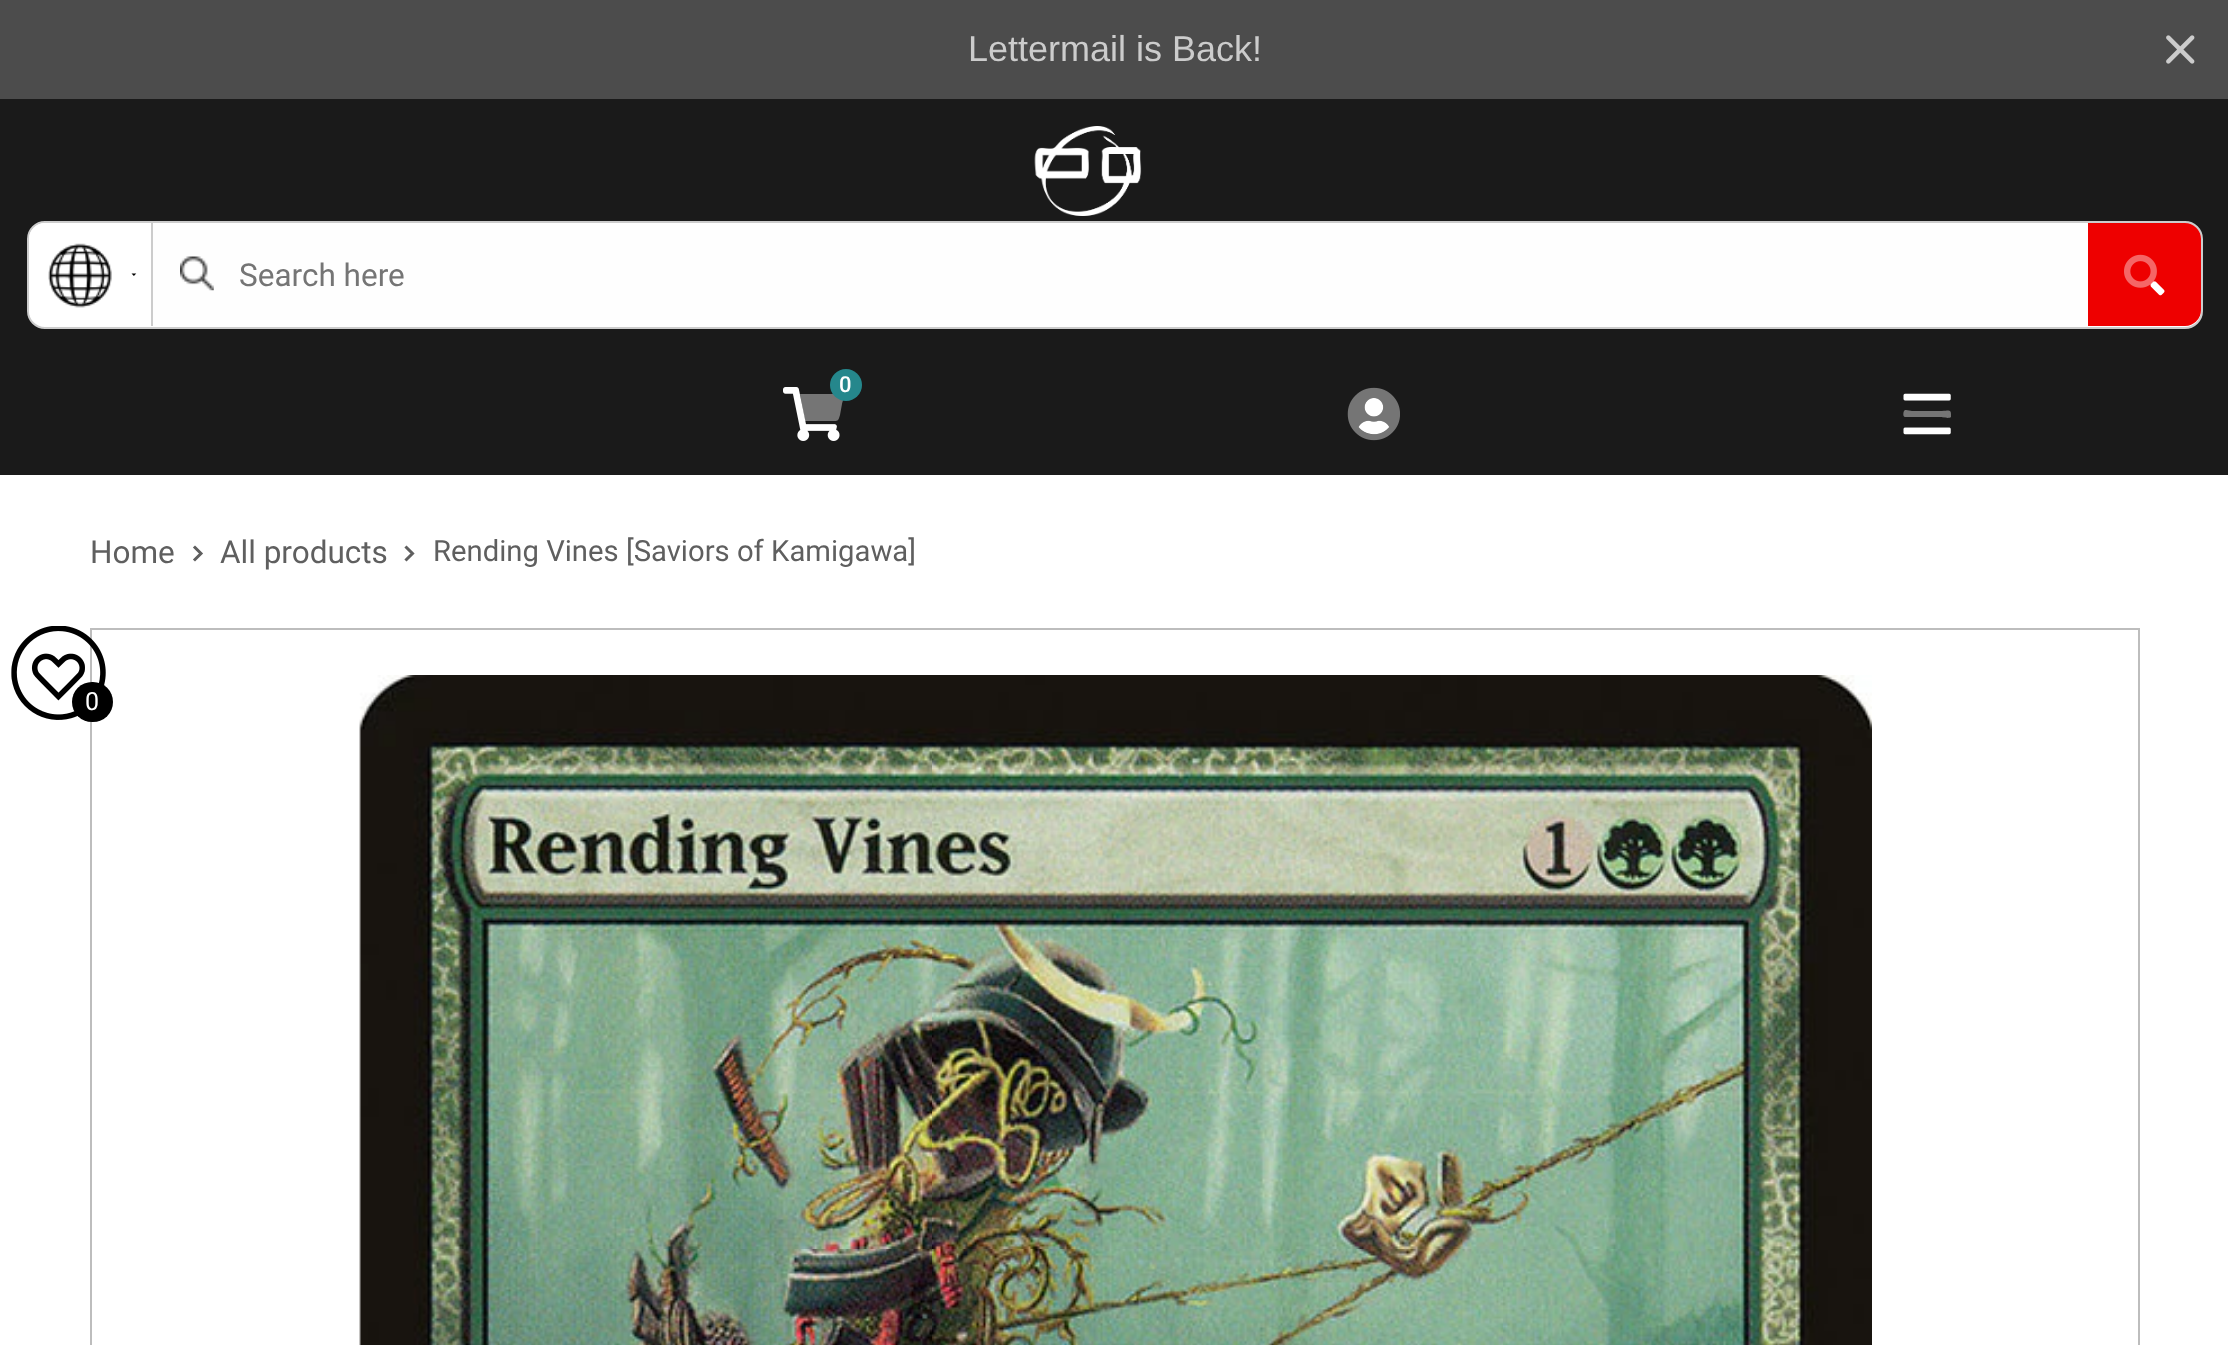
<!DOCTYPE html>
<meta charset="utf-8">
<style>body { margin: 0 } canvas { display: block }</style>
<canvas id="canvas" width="2228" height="1345"></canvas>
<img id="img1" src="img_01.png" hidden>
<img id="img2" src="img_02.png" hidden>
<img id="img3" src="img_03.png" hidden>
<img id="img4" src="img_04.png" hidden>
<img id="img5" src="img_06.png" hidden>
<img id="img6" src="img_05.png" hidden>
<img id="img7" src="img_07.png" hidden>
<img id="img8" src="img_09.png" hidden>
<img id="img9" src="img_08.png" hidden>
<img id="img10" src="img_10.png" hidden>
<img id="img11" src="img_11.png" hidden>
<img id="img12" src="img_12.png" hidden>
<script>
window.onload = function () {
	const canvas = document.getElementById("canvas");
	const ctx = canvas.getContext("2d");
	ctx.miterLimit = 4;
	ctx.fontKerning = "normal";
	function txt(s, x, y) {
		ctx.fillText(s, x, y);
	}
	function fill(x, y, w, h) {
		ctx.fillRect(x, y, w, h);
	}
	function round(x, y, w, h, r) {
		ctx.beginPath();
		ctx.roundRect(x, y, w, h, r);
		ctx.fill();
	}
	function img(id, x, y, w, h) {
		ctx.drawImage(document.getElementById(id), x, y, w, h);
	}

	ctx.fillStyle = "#FFFFFF";
	fill(0, 0, 2228, 1345);
	ctx.fillStyle = "#4C4C4C";
	fill(0, 0, 2228, 99);
	img("img1", 2166, 35, 29, 29);
	ctx.fillStyle = "#1A1A1A";
	fill(0, 99, 2228, 376);
	img("img2", 1034, 126, 108, 90);
	ctx.fillStyle = "#FEFEFE";
	ctx.beginPath();
	ctx.roundRect(28, 222, 2174, 106, 17);
	ctx.fill();
	ctx.strokeStyle = "#CCCCCC";
	ctx.lineWidth = 2;
	ctx.stroke();
	ctx.fillStyle = "#FFFFFF";
	ctx.beginPath();
	ctx.roundRect(29, 223, 124, 103, [16, 0, 0, 16]);
	ctx.fill();
	img("img3", 48, 243, 89, 65);
	ctx.fillStyle = "#CCCCCC";
	fill(151, 223, 2, 103);
	img("img4", 180, 256, 34, 35);
	ctx.fillStyle = "#EE0000";
	ctx.beginPath();
	ctx.roundRect(2088, 223, 113, 103, [0, 16, 16, 0]);
	ctx.fill();
	img("img5", 2150, 281, 15, 15);
	img("img6", 2124, 254, 33, 34);
	img("img7", 783, 387, 57, 54);
	ctx.fillStyle = "rgba(254, 254, 254, 0.4)";
	ctx.beginPath();
	ctx.moveTo(841, 394);
	ctx.bezierCurveTo(846, 394, 842, 403, 842, 404);
	ctx.lineTo(840, 415);
	ctx.bezierCurveTo(838, 422, 838, 421, 831, 421);
	ctx.lineTo(805, 421);
	ctx.lineTo(800, 394);
	ctx.closePath();
	ctx.fill();
	ctx.fillStyle = "#25878C";
	ctx.beginPath();
	ctx.arc(846, 385, 16, 0, Math.PI * 2);
	ctx.fill();
	img("img8", 1358, 398, 32, 37);
	img("img9", 1347, 387, 53, 54);
	img("img10", 1903, 393, 48, 42);
	ctx.fillStyle = "#757575";
	ctx.beginPath();
	ctx.moveTo(1905, 417);
	ctx.bezierCurveTo(1903, 417, 1903, 413, 1904, 411);
	ctx.bezierCurveTo(1905, 409, 1910, 411, 1912, 411);
	ctx.lineTo(1942, 411);
	ctx.bezierCurveTo(1948, 411, 1951, 409, 1951, 414);
	ctx.lineTo(1951, 417);
	ctx.bezierCurveTo(1949, 419, 1942, 417, 1942, 417);
	ctx.closePath();
	ctx.fill();
	ctx.beginPath();
	ctx.moveTo(195, 547.5);
	ctx.lineTo(201, 553.5);
	ctx.lineTo(195, 559.5);
	ctx.strokeStyle = "#5F5F5F";
	ctx.lineWidth = 3;
	ctx.lineCap = "square";
	ctx.stroke();
	ctx.beginPath();
	ctx.moveTo(406.5, 547.5);
	ctx.lineTo(412.5, 553.5);
	ctx.lineTo(406.5, 559.5);
	ctx.stroke();
	ctx.strokeStyle = "#BDBDBD";
	ctx.lineWidth = 2;
	ctx.strokeRect(91, 629, 2048, 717);
	img("img11", 359, 675, 1513, 670);
	img("img12", 11, 626, 95, 94);
	ctx.fillStyle = "#000000";
	round(72, 682, 41, 40, 20);
	ctx.font = "36px Liberation Sans";
	ctx.fillStyle = "#CCCCCC";
	txt("Lettermail is Back!", 968, 61);
	ctx.font = "31.5px Roboto";
	ctx.fillStyle = "#757575";
	txt("Search here", 239, 286);
	ctx.font = "500 22px Roboto";
	ctx.fillStyle = "#FFFFFF";
	txt("0", 839, 392);
	ctx.font = "31.5px Roboto";
	ctx.fillStyle = "#5F5F5F";
	txt("Home", 90, 563);
	txt("All products", 220, 563);
	ctx.font = "29.25px Roboto";
	txt("Rending Vines [Saviors of Kamigawa]", 433, 561);
	ctx.font = "25px Roboto";
	ctx.fillStyle = "#FFFFFF";
	txt("0", 85, 710);
};
</script>
